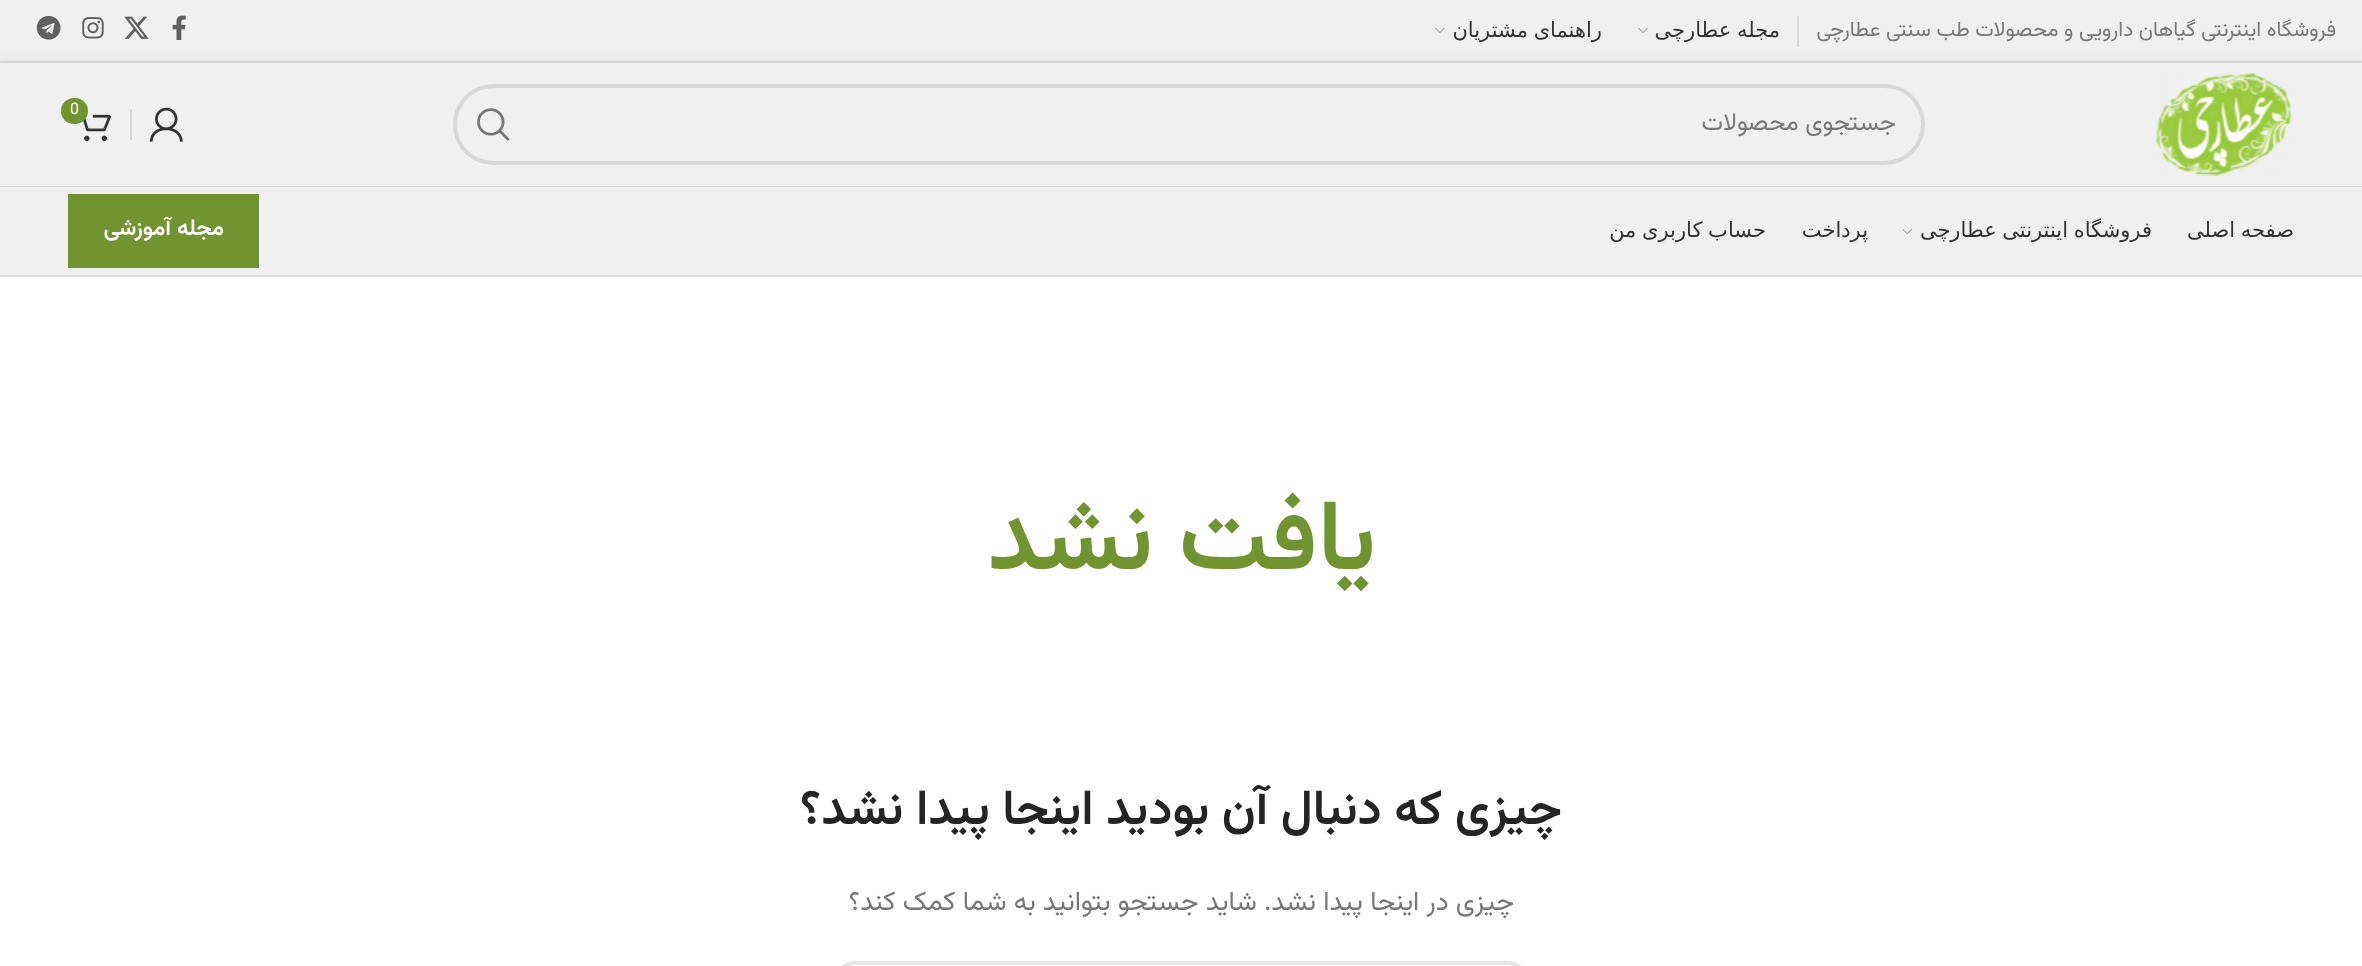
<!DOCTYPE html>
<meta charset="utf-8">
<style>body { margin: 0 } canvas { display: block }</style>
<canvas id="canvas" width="2362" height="966"></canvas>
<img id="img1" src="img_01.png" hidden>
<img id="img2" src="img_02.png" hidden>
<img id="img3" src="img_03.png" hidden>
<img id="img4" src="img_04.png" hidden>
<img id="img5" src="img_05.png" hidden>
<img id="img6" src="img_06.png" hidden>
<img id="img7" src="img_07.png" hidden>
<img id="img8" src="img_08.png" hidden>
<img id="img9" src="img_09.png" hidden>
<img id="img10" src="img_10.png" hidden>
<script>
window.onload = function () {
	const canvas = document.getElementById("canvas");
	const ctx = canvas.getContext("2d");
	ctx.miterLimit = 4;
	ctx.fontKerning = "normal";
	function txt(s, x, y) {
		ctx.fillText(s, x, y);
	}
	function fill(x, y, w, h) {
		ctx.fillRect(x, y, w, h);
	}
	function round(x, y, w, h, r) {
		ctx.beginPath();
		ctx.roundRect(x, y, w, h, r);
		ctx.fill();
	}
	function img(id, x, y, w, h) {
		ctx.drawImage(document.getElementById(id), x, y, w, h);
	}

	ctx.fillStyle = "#FFFFFF";
	fill(0, 0, 2362, 966);
	ctx.fillStyle = "#F0F0F0";
	fill(0, 0, 2362, 61);
	ctx.fillStyle = "#D9D9D9";
	fill(0, 61, 2362, 2);
	ctx.fillStyle = "rgba(0, 0, 0, 0.1)";
	ctx.filter = "blur(7px)";
	ctx.beginPath();
	ctx.rect(0, 65, 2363, 124);
	ctx.fill();
	ctx.filter = "none";
	ctx.fillStyle = "#D7D7D7";
	fill(1797, 16, 2, 31);
	img("img1", 1638, 27, 10, 6);
	img("img1", 1435, 27, 10, 6);
	img("img2", 172, 15, 14, 25);
	img("img3", 124, 16, 25, 23);
	img("img4", 82, 17, 22, 22);
	img("img5", 36, 15, 25, 25);
	ctx.fillStyle = "#F0F0F0";
	fill(0, 63, 2362, 212);
	ctx.fillStyle = "rgba(129, 129, 129, 0.2)";
	fill(0, 186, 2362, 1);
	img("img6", 2156, 73, 136, 103);
	img("img7", 149, 107, 34, 35);
	ctx.fillStyle = "#D7D7D7";
	fill(130, 109, 2, 31);
	img("img8", 83, 114, 28, 28);
	ctx.fillStyle = "#719430";
	round(61, 98, 27, 26, 13);
	ctx.beginPath();
	ctx.roundRect(455, 86, 1468, 77, 38.5);
	ctx.strokeStyle = "#D8D8D8";
	ctx.lineWidth = 4;
	ctx.stroke();
	img("img9", 477, 108, 33, 33);
	ctx.fillStyle = "#DEDEDE";
	fill(0, 275, 2362, 2);
	img("img10", 1902, 229, 10, 6);
	ctx.fillStyle = "#719430";
	fill(68, 194, 191, 74);
	ctx.beginPath();
	ctx.roundRect(833, 963, 696, 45, 38);
	ctx.strokeStyle = "#E6E6E6";
	ctx.stroke();
	ctx.direction = "rtl";
	ctx.font = "21px Vazirmatn";
	ctx.fillStyle = "#777777";
	txt("فروشگاه اینترنتی گیاهان دارویی و محصولات طب سنتی عطارچی", 2336, 36);
	ctx.wordSpacing = "-1px";
	ctx.font = "21px DejaVu Sans";
	ctx.fillStyle = "#333333";
	txt("مجله عطارچی", 1780, 37);
	txt("راهنمای مشتریان", 1602, 37);
	ctx.wordSpacing = "0px";
	ctx.direction = "ltr";
	ctx.font = "16px Vazirmatn";
	ctx.fillStyle = "#FFFFFF";
	txt("0", 70, 114);
	ctx.direction = "rtl";
	ctx.font = "24.5px Vazirmatn";
	ctx.fillStyle = "#777777";
	txt("جستجوی محصولات", 1896, 130);
	ctx.wordSpacing = "-1px";
	ctx.font = "21px DejaVu Sans";
	ctx.fillStyle = "#333333";
	txt("صفحه اصلی", 2294, 237);
	txt("فروشگاه اینترنتی عطارچی", 2152, 237);
	ctx.wordSpacing = "0px";
	txt("پرداخت", 1868, 237);
	ctx.wordSpacing = "-1px";
	txt("حساب کاربری من", 1766, 237);
	ctx.wordSpacing = "0px";
	ctx.font = "600 22.75px Vazirmatn";
	ctx.fillStyle = "#FFFFFF";
	txt("مجله آموزشی", 224, 235);
	ctx.font = "600 99px Vazirmatn";
	ctx.fillStyle = "#719430";
	txt("یافت نشد", 1376, 569);
	ctx.font = "600 49px Vazirmatn";
	ctx.fillStyle = "#242424";
	txt("چیزی که دنبال آن بودید اینجا پیدا نشد؟", 1562, 824);
	ctx.font = "26.95px Vazirmatn";
	ctx.fillStyle = "#777777";
	txt("چیزی در اینجا پیدا نشد. شاید جستجو بتوانید به شما کمک کند؟", 1514, 910);
};
</script>
